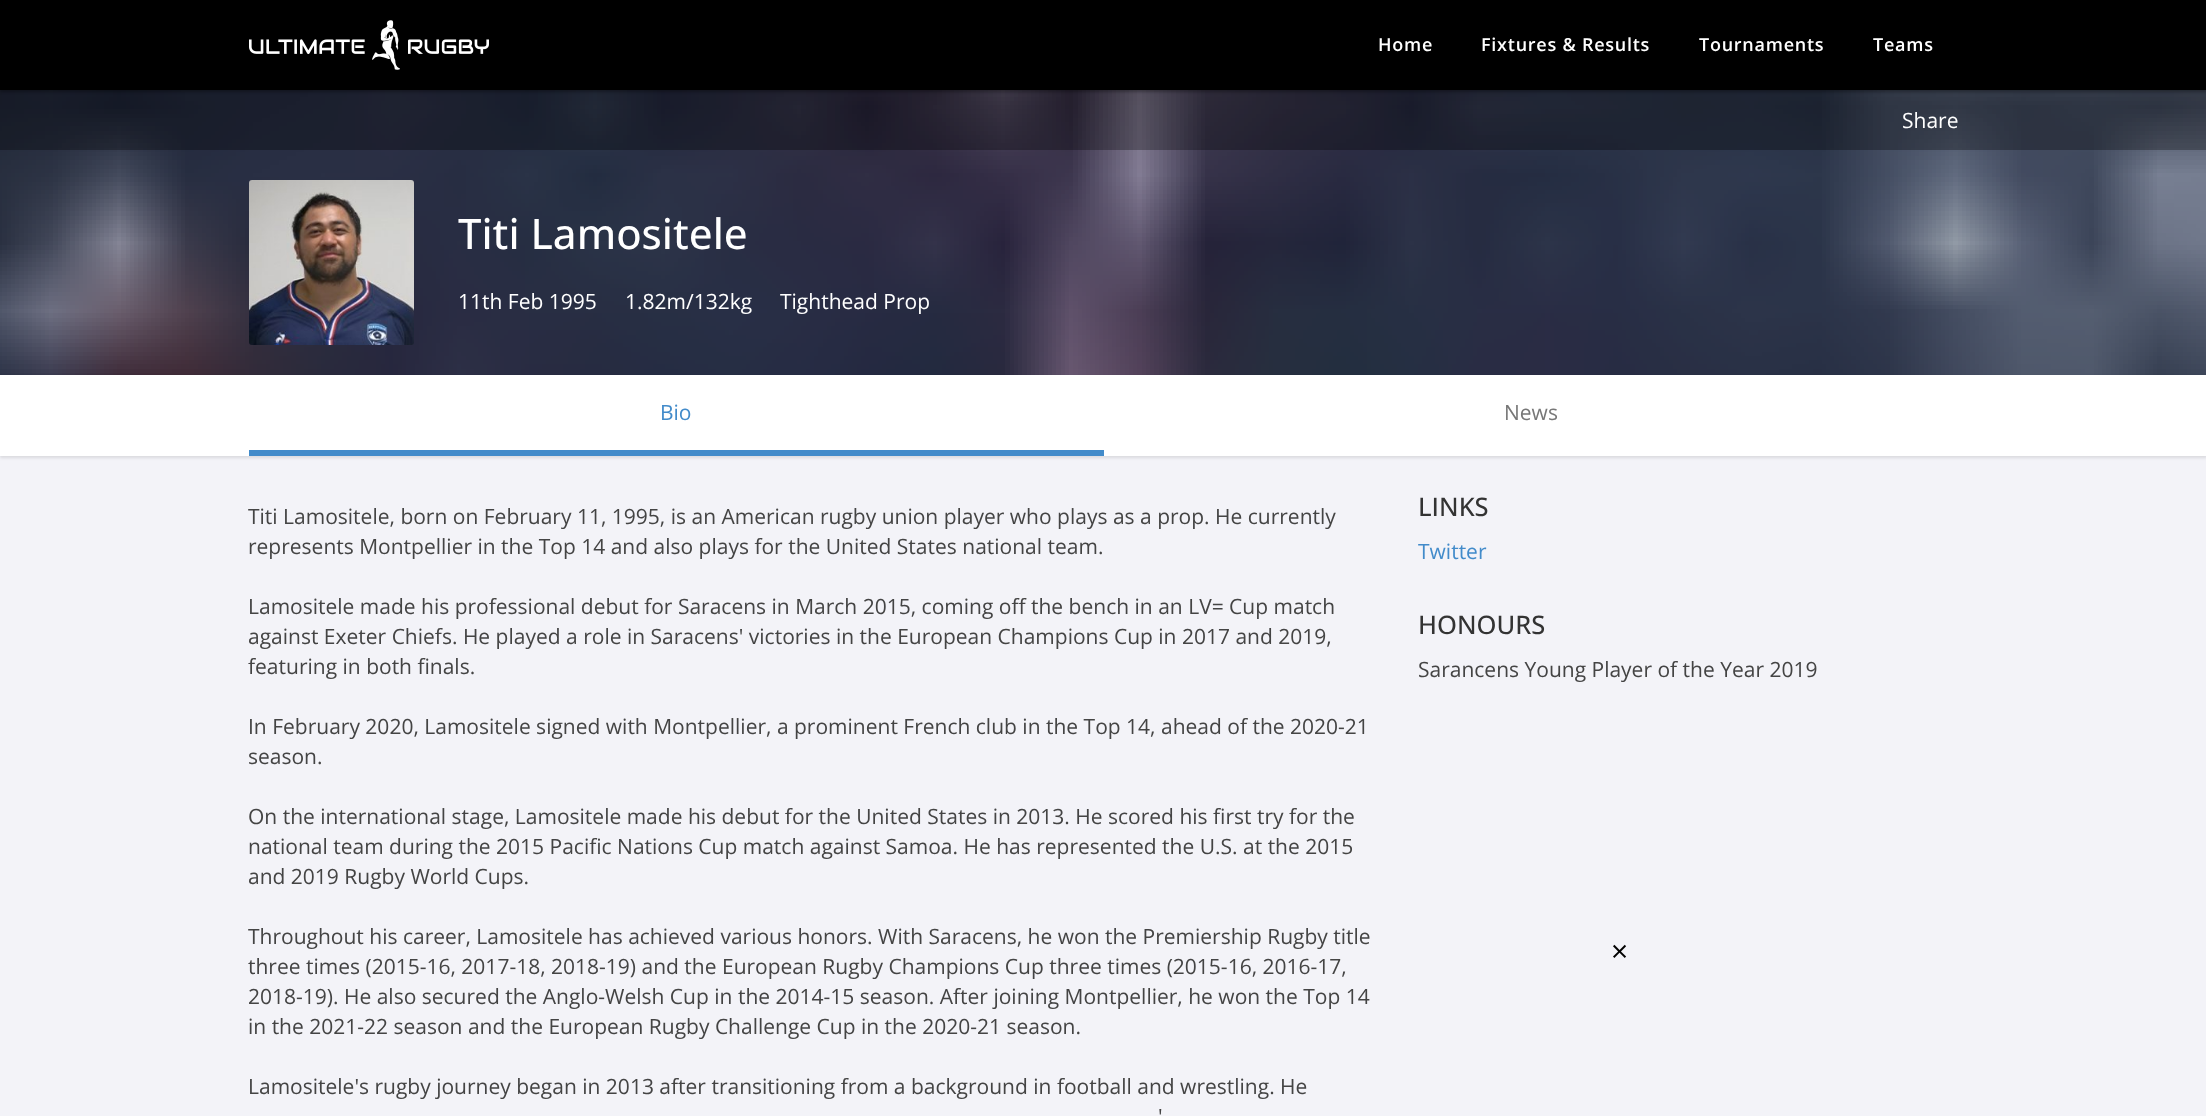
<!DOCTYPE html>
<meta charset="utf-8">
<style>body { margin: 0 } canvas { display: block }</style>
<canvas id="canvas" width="2206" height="1116"></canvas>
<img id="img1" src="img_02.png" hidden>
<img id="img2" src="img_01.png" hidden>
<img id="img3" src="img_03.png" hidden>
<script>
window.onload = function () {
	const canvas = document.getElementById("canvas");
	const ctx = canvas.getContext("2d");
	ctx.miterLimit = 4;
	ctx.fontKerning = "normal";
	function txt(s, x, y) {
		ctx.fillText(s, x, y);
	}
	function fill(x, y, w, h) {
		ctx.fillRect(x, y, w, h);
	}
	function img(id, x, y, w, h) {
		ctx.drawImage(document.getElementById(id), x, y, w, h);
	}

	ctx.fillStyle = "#F3F3F8";
	fill(0, 0, 2206, 1116);
	ctx.fillStyle = "#222222";
	fill(0, 90, 2206, 285);
	img("img1", 0, 90, 2206, 285);
	ctx.fillStyle = "rgba(0, 0, 0, 0.3)";
	fill(0, 90, 2206, 60);
	ctx.filter = "blur(1.5px)";
	ctx.beginPath();
	ctx.rect(0, 2, 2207, 90);
	ctx.fill();
	ctx.filter = "none";
	ctx.fillStyle = "#000000";
	fill(0, 0, 2206, 90);
	img("img2", 249, 20, 240, 50);
	img("img3", 249, 180, 165, 165);
	ctx.fillStyle = "rgba(0, 0, 0, 0.1)";
	ctx.filter = "blur(1.5px)";
	ctx.beginPath();
	ctx.rect(0, 377, 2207, 81);
	ctx.fill();
	ctx.filter = "none";
	ctx.fillStyle = "#FFFFFF";
	fill(0, 375, 2206, 81);
	ctx.fillStyle = "#428BCA";
	fill(249, 450, 855, 6);
	ctx.letterSpacing = "0.75px";
	ctx.font = "600 18px Open Sans";
	ctx.fillStyle = "#FFFFFF";
	txt("Home", 1378, 51);
	txt("Fixtures & Results", 1481, 51);
	txt("Tournaments", 1699, 51);
	txt("Teams", 1873, 51);
	ctx.letterSpacing = "0px";
	ctx.font = "21px Open Sans";
	txt("Share", 1902, 128);
	ctx.font = "500 42px Open Sans";
	txt("Titi Lamositele", 458, 249);
	ctx.font = "21px Open Sans";
	txt("11th Feb 1995", 458, 309);
	txt("1.82m/132kg", 625, 309);
	txt("Tighthead Prop", 780, 309);
	ctx.fillStyle = "#428BCA";
	txt("Bio", 660, 420);
	ctx.fillStyle = "#777777";
	txt("News", 1504, 420);
	ctx.fillStyle = "#444444";
	txt("Titi Lamositele, born on February 11, 1995, is an American rugby union player who plays as a prop. He currently", 248, 524);
	txt("represents Montpellier in the Top 14 and also plays for the United States national team.", 248, 554);
	txt("Lamositele made his professional debut for Saracens in March 2015, coming off the bench in an LV= Cup match", 248, 614);
	txt("against Exeter Chiefs. He played a role in Saracens' victories in the European Champions Cup in 2017 and 2019,", 248, 644);
	txt("featuring in both finals.", 248, 674);
	txt("In February 2020, Lamositele signed with Montpellier, a prominent French club in the Top 14, ahead of the 2020-21", 248, 734);
	txt("season.", 248, 764);
	txt("On the international stage, Lamositele made his debut for the United States in 2013. He scored his first try for the", 248, 824);
	txt("national team during the 2015 Pacific Nations Cup match against Samoa. He has represented the U.S. at the 2015", 248, 854);
	txt("and 2019 Rugby World Cups.", 248, 884);
	txt("Throughout his career, Lamositele has achieved various honors. With Saracens, he won the Premiership Rugby title", 248, 944);
	txt("three times (2015-16, 2017-18, 2018-19) and the European Rugby Champions Cup three times (2015-16, 2016-17,", 248, 974);
	txt("2018-19). He also secured the Anglo-Welsh Cup in the 2014-15 season. After joining Montpellier, he won the Top 14", 248, 1004);
	txt("in the 2021-22 season and the European Rugby Challenge Cup in the 2020-21 season.", 248, 1034);
	txt("Lamositele's rugby journey began in 2013 after transitioning from a background in football and wrestling. He", 248, 1094);
	txt("'", 1158, 1124);
	ctx.font = "500 25.5px Open Sans";
	ctx.fillStyle = "#333333";
	txt("LINKS", 1418, 516);
	ctx.font = "21px Open Sans";
	ctx.fillStyle = "#428BCA";
	txt("Twitter", 1418, 559);
	ctx.font = "500 25.5px Open Sans";
	ctx.fillStyle = "#333333";
	txt("HONOURS", 1418, 634);
	ctx.font = "21px Open Sans";
	ctx.fillStyle = "#444444";
	txt("Sarancens Young Player of the Year 2019", 1418, 677);
	ctx.font = "30px Open Sans";
	ctx.fillStyle = "#000000";
	txt("×", 1611, 962);
};
</script>
